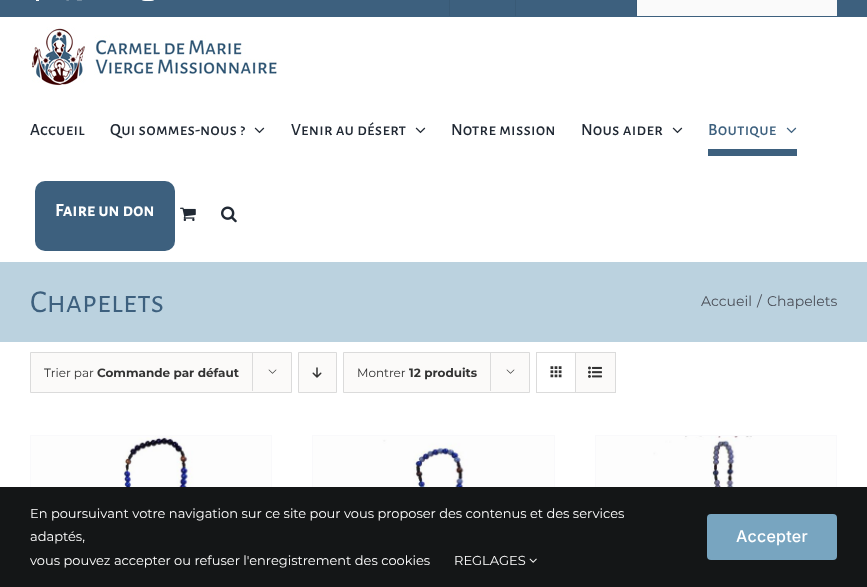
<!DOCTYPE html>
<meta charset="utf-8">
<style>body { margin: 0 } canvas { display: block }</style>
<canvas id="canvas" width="867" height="587"></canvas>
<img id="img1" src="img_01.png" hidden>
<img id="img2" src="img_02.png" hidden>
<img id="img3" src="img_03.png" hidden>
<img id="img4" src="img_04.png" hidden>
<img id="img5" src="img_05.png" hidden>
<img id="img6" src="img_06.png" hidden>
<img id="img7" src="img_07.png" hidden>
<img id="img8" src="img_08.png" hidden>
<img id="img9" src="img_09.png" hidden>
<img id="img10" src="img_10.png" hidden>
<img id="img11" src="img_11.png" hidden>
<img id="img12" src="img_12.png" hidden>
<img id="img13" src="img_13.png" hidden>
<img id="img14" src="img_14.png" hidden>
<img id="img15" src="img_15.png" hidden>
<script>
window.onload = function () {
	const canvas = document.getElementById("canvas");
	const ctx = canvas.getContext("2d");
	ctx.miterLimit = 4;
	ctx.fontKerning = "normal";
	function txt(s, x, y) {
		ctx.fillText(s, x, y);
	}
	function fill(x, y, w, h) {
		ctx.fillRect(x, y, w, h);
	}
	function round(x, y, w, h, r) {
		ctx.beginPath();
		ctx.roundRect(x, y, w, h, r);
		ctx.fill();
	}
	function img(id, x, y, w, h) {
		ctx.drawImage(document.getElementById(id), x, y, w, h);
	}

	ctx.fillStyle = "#FFFFFF";
	fill(0, 0, 867, 587);
	ctx.fillStyle = "#3D607E";
	fill(0, 0, 867, 17);
	ctx.fillStyle = "#FFFFFF";
	fill(36, 0, 3, 1);
	img("img1", 66, 0, 16, 1);
	img("img2", 141, 0, 13, 1);
	ctx.fillStyle = "#395A76";
	fill(449, 0, 1, 16);
	fill(515, 0, 1, 16);
	fill(636, 0, 1, 16);
	ctx.fillStyle = "#FAFAFA";
	fill(637, 0, 200, 16);
	img("img3", 32, 27, 245, 59);
	img("img4", 254, 127, 11, 7);
	img("img4", 415, 127, 11, 7);
	img("img4", 672, 127, 11, 7);
	img("img5", 786, 127, 11, 7);
	ctx.fillStyle = "#3D607E";
	fill(708, 149, 89, 7);
	round(35, 181, 140, 70, 10);
	img("img6", 180, 207, 16, 14);
	img("img7", 221, 206, 16, 17);
	ctx.fillStyle = "#BBD2DF";
	fill(0, 262, 867, 80);
	ctx.fillStyle = "#FBFAF9";
	ctx.beginPath();
	ctx.rect(30.5, 352.5, 261, 40);
	ctx.fill();
	ctx.strokeStyle = "#DBDBDB";
	ctx.stroke();
	ctx.fillStyle = "#DBDBDB";
	fill(252, 352, 1, 39);
	img("img8", 268, 369, 9, 5);
	ctx.fillStyle = "#FBFAF9";
	ctx.beginPath();
	ctx.rect(298.5, 352.5, 38, 40);
	ctx.fill();
	ctx.stroke();
	img("img9", 312, 367, 10, 11);
	ctx.beginPath();
	ctx.rect(343.5, 352.5, 186, 40);
	ctx.fill();
	ctx.stroke();
	ctx.fillStyle = "#DBDBDB";
	fill(490, 352, 1, 39);
	img("img8", 506, 369, 9, 5);
	ctx.strokeRect(536.5, 352.5, 79, 40);
	fill(575, 353, 1, 39);
	img("img10", 550, 366, 12, 12);
	ctx.fillStyle = "#FBFAF9";
	fill(576, 353, 39, 39);
	img("img11", 588, 366, 14, 12);
	ctx.fillStyle = "#F9F9FB";
	fill(30, 435, 242, 1);
	fill(271, 435, 1, 52);
	fill(30, 435, 1, 52);
	img("img12", 31, 436, 240, 51);
	fill(312, 435, 243, 1);
	fill(554, 435, 1, 52);
	fill(312, 435, 1, 52);
	img("img13", 313, 436, 241, 51);
	fill(595, 435, 242, 1);
	fill(836, 435, 1, 52);
	fill(595, 435, 1, 52);
	img("img14", 596, 436, 240, 51);
	ctx.fillStyle = "#141617";
	fill(0, 487, 867, 100);
	img("img15", 529, 558, 8, 5);
	ctx.fillStyle = "#78A5C0";
	round(707, 514, 130, 46, 4);
	ctx.letterSpacing = "0.25px";
	ctx.font = "500 17px Alegreya Sans SC";
	ctx.fillStyle = "#212934";
	txt("Accueil", 30, 135);
	txt("Qui sommes-nous ?", 110, 135);
	txt("Venir au désert", 291, 135);
	txt("Notre mission", 451, 135);
	txt("Nous aider", 581, 135);
	ctx.fillStyle = "#3D607E";
	txt("Boutique", 708, 135);
	ctx.font = "bold 18px Alegreya Sans SC";
	ctx.fillStyle = "#FFFFFF";
	txt("Faire un don", 55, 216);
	ctx.letterSpacing = "0px";
	ctx.font = "32px Alegreya Sans SC";
	ctx.fillStyle = "#3D607E";
	txt("Chapelets", 30, 312);
	ctx.font = "14px Montserrat";
	ctx.fillStyle = "#4A4E57";
	txt("Accueil", 701, 306);
	txt("/", 757, 306);
	txt("Chapelets", 767, 306);
	ctx.font = "12px Montserrat";
	ctx.fillStyle = "#333333";
	txt("Trier par", 44, 377);
	ctx.font = "bold 12px Montserrat";
	txt("Commande par défaut", 97, 377);
	ctx.font = "12px Montserrat";
	txt("Montrer", 357, 377);
	ctx.font = "bold 12px Montserrat";
	txt("12 produits", 409, 377);
	ctx.font = "13px Montserrat";
	ctx.fillStyle = "#FFFFFF";
	txt("En poursuivant votre navigation sur ce site pour vous proposer des contenus et des services", 30, 518);
	txt("adaptés,", 30, 541);
	txt("vous pouvez accepter ou refuser l'enregistrement des cookies", 30, 565);
	txt("REGLAGES", 454, 565);
	ctx.letterSpacing = "0.25px";
	ctx.font = "500 16px Inter";
	txt("Accepter", 736, 542);
};
</script>
